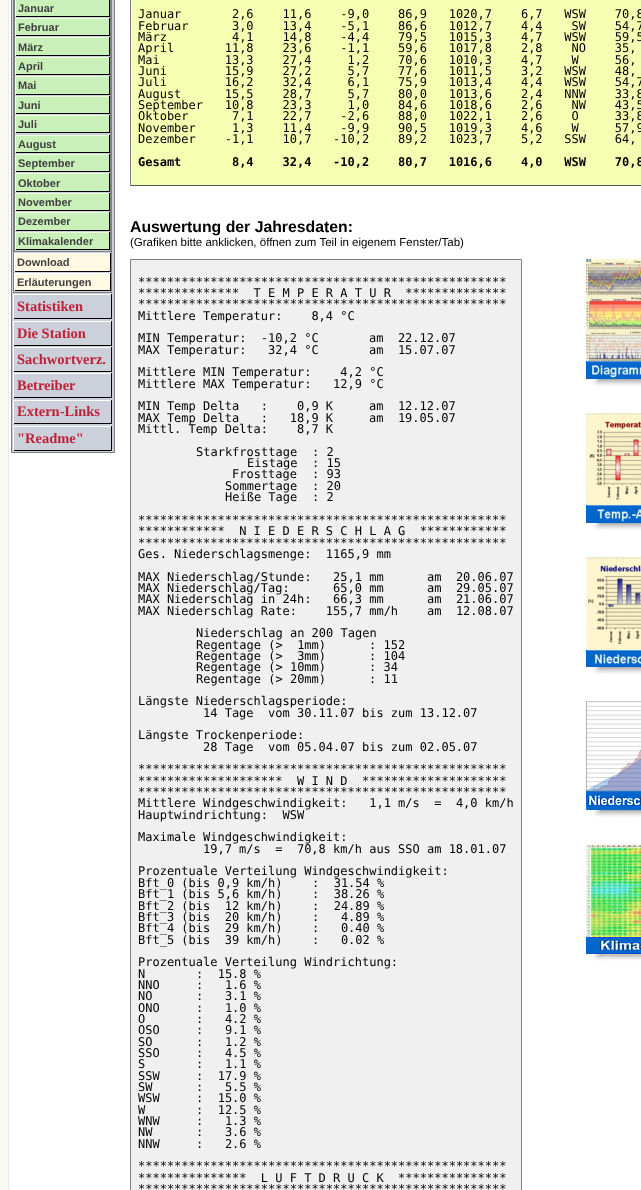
<!DOCTYPE html>
<meta charset="utf-8">
<style>body { margin: 0 } canvas { display: block }</style>
<canvas id="canvas" width="641" height="1190"></canvas>
<img id="img1" src="img_01.png" hidden>
<img id="img2" src="img_02.png" hidden>
<img id="img3" src="img_03.png" hidden>
<img id="img4" src="img_04.png" hidden>
<img id="img5" src="img_05.png" hidden>
<script>
window.onload = function () {
	const canvas = document.getElementById("canvas");
	const ctx = canvas.getContext("2d");
	ctx.miterLimit = 4;
	ctx.fontKerning = "normal";
	function txt(s, x, y) {
		ctx.fillText(s, x, y);
	}
	function fill(x, y, w, h) {
		ctx.fillRect(x, y, w, h);
	}
	function img(id, x, y, w, h) {
		ctx.drawImage(document.getElementById(id), x, y, w, h);
	}

	ctx.fillStyle = "#FAFAF0";
	fill(0, 0, 641, 1190);
	ctx.fillStyle = "#FFFFFF";
	ctx.beginPath();
	ctx.rect(8.5, -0.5, 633, 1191);
	ctx.fill();
	ctx.strokeStyle = "#EAEAEA";
	ctx.stroke();
	ctx.fillStyle = "#CCD0DB";
	ctx.beginPath();
	ctx.rect(11.5, -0.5, 103, 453);
	ctx.fill();
	ctx.strokeStyle = "#808080";
	ctx.stroke();
	ctx.strokeRect(13.5, -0.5, 98, 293);
	ctx.strokeRect(14.5, -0.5, 96, 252);
	ctx.fillStyle = "#C8F0B8";
	fill(16, 0, 93, 16);
	ctx.fillStyle = "#000000";
	fill(109, 0, 1, 17);
	fill(15, 16, 95, 1);
	ctx.fillStyle = "#EAFFDA";
	fill(15, 0, 1, 17);
	ctx.fillStyle = "#C8F0B8";
	fill(16, 19, 93, 16);
	ctx.fillStyle = "#EAFFDA";
	fill(15, 18, 95, 1);
	ctx.fillStyle = "#000000";
	fill(109, 18, 1, 18);
	fill(15, 35, 95, 1);
	ctx.fillStyle = "#EAFFDA";
	fill(15, 18, 1, 18);
	ctx.fillStyle = "#C8F0B8";
	fill(16, 38, 93, 17);
	ctx.fillStyle = "#EAFFDA";
	fill(15, 37, 95, 1);
	ctx.fillStyle = "#000000";
	fill(109, 37, 1, 19);
	fill(15, 55, 95, 1);
	ctx.fillStyle = "#EAFFDA";
	fill(15, 37, 1, 19);
	ctx.fillStyle = "#C8F0B8";
	fill(16, 58, 93, 16);
	ctx.fillStyle = "#EAFFDA";
	fill(15, 57, 95, 1);
	ctx.fillStyle = "#000000";
	fill(109, 57, 1, 18);
	fill(15, 74, 95, 1);
	ctx.fillStyle = "#EAFFDA";
	fill(15, 57, 1, 18);
	ctx.fillStyle = "#C8F0B8";
	fill(16, 77, 93, 17);
	ctx.fillStyle = "#EAFFDA";
	fill(15, 76, 95, 1);
	ctx.fillStyle = "#000000";
	fill(109, 76, 1, 19);
	fill(15, 94, 95, 1);
	ctx.fillStyle = "#EAFFDA";
	fill(15, 76, 1, 19);
	ctx.fillStyle = "#C8F0B8";
	fill(16, 97, 93, 16);
	ctx.fillStyle = "#EAFFDA";
	fill(15, 96, 95, 1);
	ctx.fillStyle = "#000000";
	fill(109, 96, 1, 18);
	fill(15, 113, 95, 1);
	ctx.fillStyle = "#EAFFDA";
	fill(15, 96, 1, 18);
	ctx.fillStyle = "#C8F0B8";
	fill(16, 116, 93, 16);
	ctx.fillStyle = "#EAFFDA";
	fill(15, 115, 95, 1);
	ctx.fillStyle = "#000000";
	fill(109, 115, 1, 18);
	fill(15, 132, 95, 1);
	ctx.fillStyle = "#EAFFDA";
	fill(15, 115, 1, 18);
	ctx.fillStyle = "#C8F0B8";
	fill(16, 136, 93, 16);
	ctx.fillStyle = "#EAFFDA";
	fill(15, 135, 95, 1);
	ctx.fillStyle = "#000000";
	fill(109, 135, 1, 18);
	fill(15, 152, 95, 1);
	ctx.fillStyle = "#EAFFDA";
	fill(15, 135, 1, 18);
	ctx.fillStyle = "#C8F0B8";
	fill(16, 155, 93, 16);
	ctx.fillStyle = "#EAFFDA";
	fill(15, 154, 95, 1);
	ctx.fillStyle = "#000000";
	fill(109, 154, 1, 18);
	fill(15, 171, 95, 1);
	ctx.fillStyle = "#EAFFDA";
	fill(15, 154, 1, 18);
	ctx.fillStyle = "#C8F0B8";
	fill(16, 174, 93, 17);
	ctx.fillStyle = "#EAFFDA";
	fill(15, 173, 95, 1);
	ctx.fillStyle = "#000000";
	fill(109, 173, 1, 19);
	fill(15, 191, 95, 1);
	ctx.fillStyle = "#EAFFDA";
	fill(15, 173, 1, 19);
	ctx.fillStyle = "#C8F0B8";
	fill(16, 194, 93, 16);
	ctx.fillStyle = "#EAFFDA";
	fill(15, 193, 95, 1);
	ctx.fillStyle = "#000000";
	fill(109, 193, 1, 18);
	fill(15, 210, 95, 1);
	ctx.fillStyle = "#EAFFDA";
	fill(15, 193, 1, 18);
	ctx.fillStyle = "#C8F0B8";
	fill(16, 213, 93, 17);
	ctx.fillStyle = "#EAFFDA";
	fill(15, 212, 95, 1);
	ctx.fillStyle = "#000000";
	fill(109, 212, 1, 19);
	fill(15, 230, 95, 1);
	ctx.fillStyle = "#EAFFDA";
	fill(15, 212, 1, 19);
	ctx.fillStyle = "#C8F0B8";
	fill(16, 233, 93, 16);
	ctx.fillStyle = "#EAFFDA";
	fill(15, 232, 95, 1);
	ctx.fillStyle = "#000000";
	fill(109, 232, 1, 18);
	fill(15, 249, 95, 1);
	ctx.fillStyle = "#EAFFDA";
	fill(15, 232, 1, 18);
	ctx.fillStyle = "#FFF9E4";
	fill(15, 254, 95, 17);
	ctx.fillStyle = "#FFFFFF";
	fill(14, 253, 97, 1);
	ctx.fillStyle = "#000000";
	fill(110, 253, 1, 19);
	fill(14, 271, 97, 1);
	ctx.fillStyle = "#FFFFFF";
	fill(14, 253, 1, 19);
	ctx.fillStyle = "#FFF9E4";
	fill(15, 274, 95, 16);
	ctx.fillStyle = "#FFFFFF";
	fill(14, 273, 97, 1);
	ctx.fillStyle = "#000000";
	fill(110, 273, 1, 18);
	fill(14, 290, 97, 1);
	ctx.fillStyle = "#FFFFFF";
	fill(14, 273, 1, 18);
	fill(13, 294, 99, 1);
	ctx.fillStyle = "#000000";
	fill(111, 294, 1, 25);
	fill(13, 318, 99, 1);
	ctx.fillStyle = "#FFFFFF";
	fill(13, 294, 1, 25);
	fill(13, 321, 99, 1);
	ctx.fillStyle = "#000000";
	fill(111, 321, 1, 25);
	fill(13, 345, 99, 1);
	ctx.fillStyle = "#FFFFFF";
	fill(13, 321, 1, 25);
	fill(13, 347, 99, 1);
	ctx.fillStyle = "#000000";
	fill(111, 347, 1, 25);
	fill(13, 371, 99, 1);
	ctx.fillStyle = "#FFFFFF";
	fill(13, 347, 1, 25);
	fill(13, 373, 99, 1);
	ctx.fillStyle = "#000000";
	fill(111, 373, 1, 25);
	fill(13, 397, 99, 1);
	ctx.fillStyle = "#FFFFFF";
	fill(13, 373, 1, 25);
	fill(13, 400, 99, 1);
	ctx.fillStyle = "#000000";
	fill(111, 400, 1, 24);
	fill(13, 423, 99, 1);
	ctx.fillStyle = "#FFFFFF";
	fill(13, 400, 1, 24);
	fill(13, 426, 99, 1);
	ctx.fillStyle = "#000000";
	fill(111, 426, 1, 25);
	fill(13, 450, 99, 1);
	ctx.fillStyle = "#FFFFFF";
	fill(13, 426, 1, 25);
	ctx.fillStyle = "#F5FFB2";
	fill(131, 0, 510, 185);
	ctx.fillStyle = "#555555";
	fill(130, 185, 511, 1);
	ctx.fillStyle = "#808080";
	fill(130, 0, 1, 186);
	ctx.fillStyle = "#F0F0F0";
	ctx.beginPath();
	ctx.rect(130.5, 259.5, 391, 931);
	ctx.fill();
	ctx.stroke();
	img("img1", 586, 259, 55, 128);
	img("img2", 586, 413, 55, 117);
	img("img3", 586, 557, 55, 117);
	img("img4", 586, 701, 55, 116);
	img("img5", 586, 844, 55, 117);
	ctx.font = "bold 11px Liberation Sans";
	ctx.fillStyle = "#404040";
	txt("Januar", 18, 12);
	txt("Februar", 18, 31);
	txt("März", 18, 51);
	txt("April", 18, 70);
	txt("Mai", 18, 89);
	txt("Juni", 18, 109);
	txt("Juli", 18, 128);
	txt("August", 18, 148);
	txt("September", 18, 167);
	txt("Oktober", 18, 187);
	txt("November", 18, 206);
	txt("Dezember", 18, 225);
	txt("Klimakalender", 18, 245);
	txt("Download", 17, 266);
	txt("Erläuterungen", 17, 286);
	ctx.font = "bold 14.5px Liberation Serif";
	ctx.fillStyle = "#C02038";
	txt("Statistiken", 17, 311);
	txt("Die Station", 17, 338);
	txt("Sachwortverz.", 17, 364);
	txt("Betreiber", 17, 390);
	txt("Extern-Links", 17, 416);
	txt("\"Readme\"", 17, 443);
	ctx.font = "12px DejaVu Sans Mono";
	ctx.fillStyle = "#000000";
	txt("Januar       2,6    11,6    -9,0    86,9   1020,7    6,7   WSW    70,8", 138, 18);
	txt("Februar      3,0    13,4    -5,1    86,6   1012,7    4,4    SW    54,7", 138, 30);
	txt("März         4,1    14,8    -4,4    79,5   1015,3    4,7   WSW    59,5", 138, 41);
	txt("April       11,8    23,6    -1,1    59,6   1017,8    2,8    NO    35,", 138, 52);
	txt("Mai         13,3    27,4     1,2    70,6   1010,3    4,7    W     56,", 138, 64);
	txt("Juni        15,9    27,2     5,7    77,6   1011,5    3,2   WSW    48,", 138, 75);
	txt("Juli        16,2    32,4     6,1    75,9   1013,4    4,4   WSW    54,7", 138, 86);
	txt("August      15,5    28,7     5,7    80,0   1013,6    2,4   NNW    33,8", 138, 98);
	txt("September   10,8    23,3     1,0    84,6   1018,6    2,6    NW    43,5", 138, 109);
	txt("Oktober      7,1    22,7    -2,6    88,0   1022,1    2,6    O     33,8", 138, 120);
	txt("November     1,3    11,4    -9,9    90,5   1019,3    4,6    W     57,9", 138, 132);
	txt("Dezember    -1,1    10,7   -10,2    89,2   1023,7    5,2   SSW    64,", 138, 143);
	ctx.font = "bold 12px DejaVu Sans Mono";
	txt("Gesamt       8,4    32,4   -10,2    80,7   1016,6    4,0   WSW    70,8", 138, 166);
	ctx.font = "bold 15.8px Liberation Sans";
	txt("Auswertung der Jahresdaten:", 130, 232);
	ctx.font = "11.5px Liberation Sans";
	txt("(Grafiken bitte anklicken, öffnen zum Teil in eigenem Fenster/Tab)", 130, 246);
	ctx.font = "12px DejaVu Sans Mono";
	txt("***************************************************", 138, 286);
	txt("**************  T E M P E R A T U R  **************", 138, 297);
	txt("***************************************************", 138, 308);
	txt("Mittlere Temperatur:    8,4 °C", 138, 320);
	txt("MIN Temperatur:  -10,2 °C", 138, 342);
	txt("am  22.12.07", 369, 342);
	txt("MAX Temperatur:   32,4 °C", 138, 354);
	txt("am  15.07.07", 369, 354);
	txt("Mittlere MIN Temperatur:    4,2 °C", 138, 376);
	txt("Mittlere MAX Temperatur:   12,9 °C", 138, 388);
	txt("MIN Temp Delta   :    0,9 K", 138, 410);
	txt("am  12.12.07", 369, 410);
	txt("MAX Temp Delta   :   18,9 K", 138, 422);
	txt("am  19.05.07", 369, 422);
	txt("Mittl. Temp Delta:    8,7 K", 138, 433);
	txt("Starkfrosttage", 196, 456);
	txt(": 2", 312, 456);
	txt("Eistage", 247, 467);
	txt(": 15", 312, 467);
	txt("Frosttage", 232, 478);
	txt(": 93", 312, 478);
	txt("Sommertage", 225, 490);
	txt(": 20", 312, 490);
	txt("Heiße Tage", 225, 501);
	txt(": 2", 312, 501);
	txt("***************************************************", 138, 524);
	txt("************  N I E D E R S C H L A G  ************", 138, 535);
	txt("***************************************************", 138, 547);
	txt("Ges. Niederschlagsmenge:  1165,9 mm", 138, 558);
	txt("MAX Niederschlag/Stunde:   25,1 mm", 138, 581);
	txt("am  20.06.07", 427, 581);
	txt("MAX Niederschlag/Tag:      65,0 mm", 138, 592);
	txt("am  29.05.07", 427, 592);
	txt("MAX Niederschlag in 24h:   66,3 mm", 138, 603);
	txt("am  21.06.07", 427, 603);
	txt("MAX Niederschlag Rate:    155,7 mm/h", 138, 615);
	txt("am  12.08.07", 427, 615);
	txt("Niederschlag an 200 Tagen", 196, 637);
	txt("Regentage (>  1mm)", 196, 649);
	txt(": 152", 369, 649);
	txt("Regentage (>  3mm)", 196, 660);
	txt(": 104", 369, 660);
	txt("Regentage (> 10mm)", 196, 671);
	txt(": 34", 369, 671);
	txt("Regentage (> 20mm)", 196, 683);
	txt(": 11", 369, 683);
	txt("Längste Niederschlagsperiode:", 138, 705);
	txt("14 Tage  vom 30.11.07 bis zum 13.12.07", 203, 717);
	txt("Längste Trockenperiode:", 138, 739);
	txt("28 Tage  vom 05.04.07 bis zum 02.05.07", 203, 751);
	txt("***************************************************", 138, 773);
	txt("********************  W I N D  ********************", 138, 785);
	txt("***************************************************", 138, 796);
	txt("Mittlere Windgeschwindigkeit:   1,1 m/s  =  4,0 km/h", 138, 807);
	txt("Hauptwindrichtung:  WSW", 138, 819);
	txt("Maximale Windgeschwindigkeit:", 138, 841);
	txt("19,7 m/s  =  70,8 km/h aus SSO am 18.01.07", 203, 853);
	txt("Prozentuale Verteilung Windgeschwindigkeit:", 138, 875);
	txt("Bft_0 (bis 0,9 km/h)", 138, 887);
	txt(":  31.54 %", 312, 887);
	txt("Bft_1 (bis 5,6 km/h)", 138, 898);
	txt(":  38.26 %", 312, 898);
	txt("Bft_2 (bis  12 km/h)", 138, 910);
	txt(":  24.89 %", 312, 910);
	txt("Bft_3 (bis  20 km/h)", 138, 921);
	txt(":   4.89 %", 312, 921);
	txt("Bft_4 (bis  29 km/h)", 138, 932);
	txt(":   0.40 %", 312, 932);
	txt("Bft_5 (bis  39 km/h)", 138, 944);
	txt(":   0.02 %", 312, 944);
	txt("Prozentuale Verteilung Windrichtung:", 138, 966);
	txt("N", 138, 978);
	txt(":  15.8 %", 196, 978);
	txt("NNO", 138, 989);
	txt(":   1.6 %", 196, 989);
	txt("NO", 138, 1000);
	txt(":   3.1 %", 196, 1000);
	txt("ONO", 138, 1012);
	txt(":   1.0 %", 196, 1012);
	txt("O", 138, 1023);
	txt(":   4.2 %", 196, 1023);
	txt("OSO", 138, 1034);
	txt(":   9.1 %", 196, 1034);
	txt("SO", 138, 1046);
	txt(":   1.2 %", 196, 1046);
	txt("SSO", 138, 1057);
	txt(":   4.5 %", 196, 1057);
	txt("S", 138, 1068);
	txt(":   1.1 %", 196, 1068);
	txt("SSW", 138, 1080);
	txt(":  17.9 %", 196, 1080);
	txt("SW", 138, 1091);
	txt(":   5.5 %", 196, 1091);
	txt("WSW", 138, 1102);
	txt(":  15.0 %", 196, 1102);
	txt("W", 138, 1114);
	txt(":  12.5 %", 196, 1114);
	txt("WNW", 138, 1125);
	txt(":   1.3 %", 196, 1125);
	txt("NW", 138, 1136);
	txt(":   3.6 %", 196, 1136);
	txt("NNW", 138, 1148);
	txt(":   2.6 %", 196, 1148);
	txt("***************************************************", 138, 1170);
	txt("***************  L U F T D R U C K  ***************", 138, 1182);
	txt("***************************************************", 138, 1193);
};
</script>
